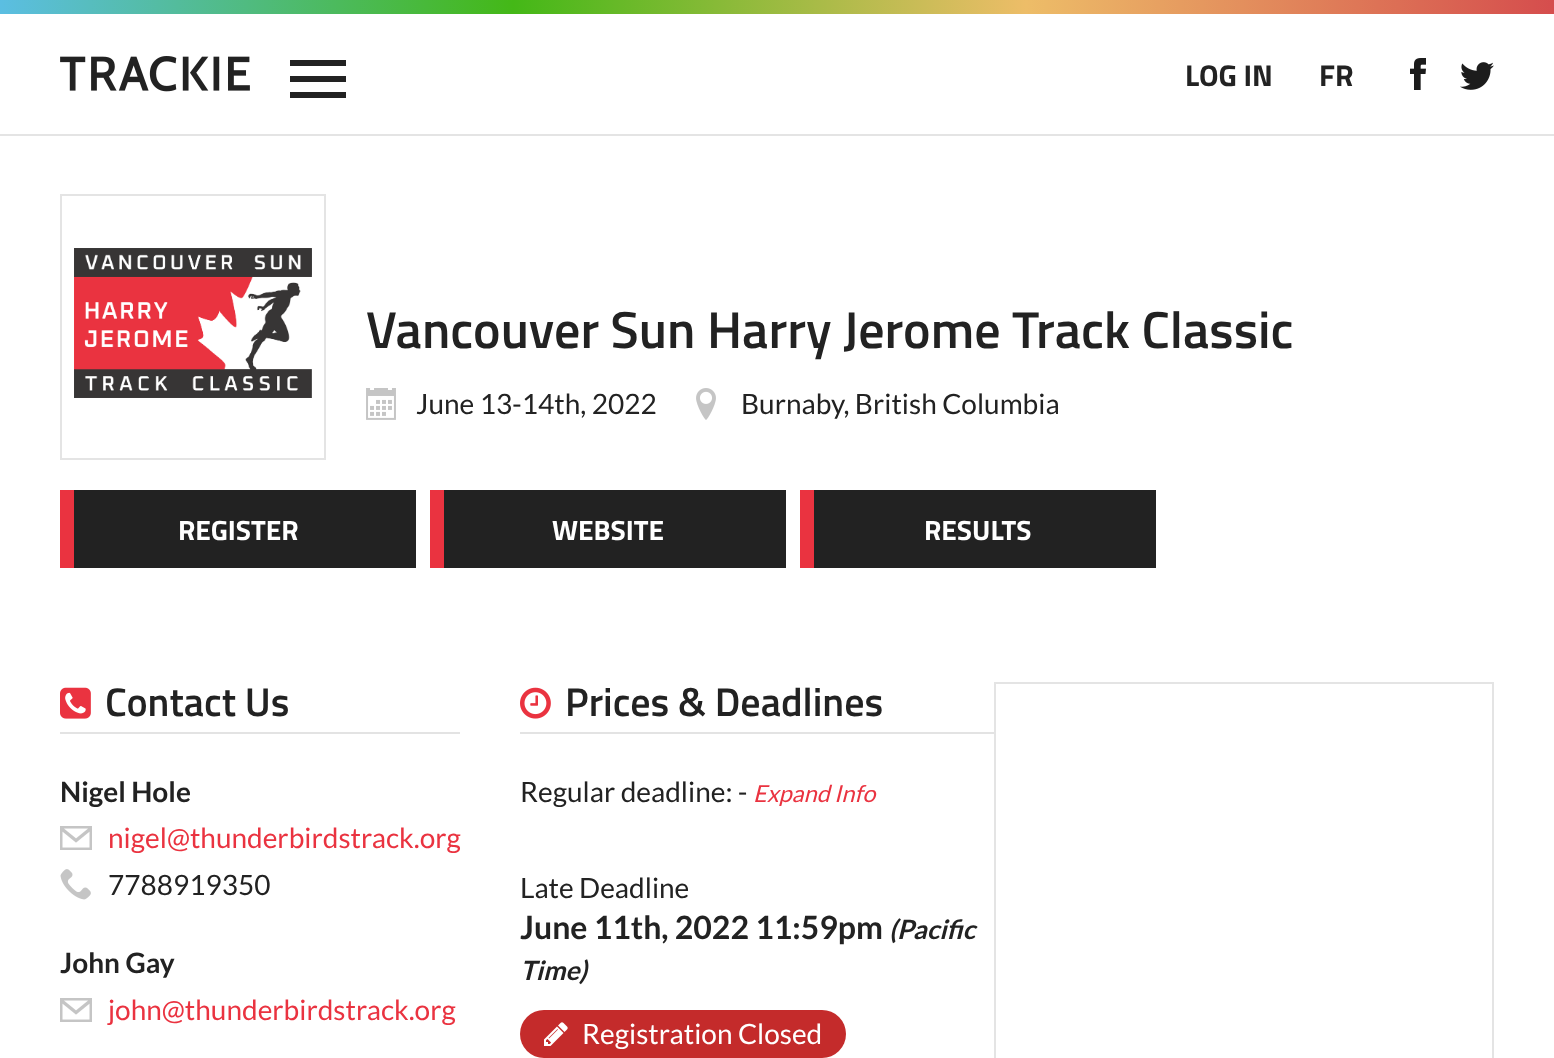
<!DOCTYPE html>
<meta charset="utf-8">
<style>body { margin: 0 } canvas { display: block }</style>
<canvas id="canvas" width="1554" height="1058"></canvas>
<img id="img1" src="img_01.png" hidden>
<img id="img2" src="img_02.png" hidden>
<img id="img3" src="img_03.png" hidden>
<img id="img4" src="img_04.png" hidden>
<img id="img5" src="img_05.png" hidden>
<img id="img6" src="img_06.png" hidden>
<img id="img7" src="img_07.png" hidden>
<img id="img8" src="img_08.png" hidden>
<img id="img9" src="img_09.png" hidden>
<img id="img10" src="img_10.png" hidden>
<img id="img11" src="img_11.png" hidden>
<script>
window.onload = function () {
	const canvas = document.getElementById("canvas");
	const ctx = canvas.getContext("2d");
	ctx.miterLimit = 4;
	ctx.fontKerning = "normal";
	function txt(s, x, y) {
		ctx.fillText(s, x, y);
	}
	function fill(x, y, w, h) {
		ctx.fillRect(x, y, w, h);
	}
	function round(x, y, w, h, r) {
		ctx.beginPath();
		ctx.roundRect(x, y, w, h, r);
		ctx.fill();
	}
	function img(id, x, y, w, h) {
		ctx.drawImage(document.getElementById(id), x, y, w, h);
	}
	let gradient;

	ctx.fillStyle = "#FFFFFF";
	fill(0, 0, 1554, 1058);
	ctx.fillStyle = "#E4E4E4";
	fill(0, 134, 1554, 2);
	gradient = ctx.createLinearGradient(0, 7, 1554, 7);
	gradient.addColorStop(0, "#5BBEE2");
	gradient.addColorStop(0.33, "#44B817");
	gradient.addColorStop(0.66, "#EDBD68");
	gradient.addColorStop(1, "#D54D4D");
	ctx.fillStyle = gradient;
	fill(0, 0, 1554, 14);
	img("img1", 60, 56, 190, 36);
	ctx.fillStyle = "#222222";
	fill(290, 60, 56, 6);
	fill(290, 76, 56, 6);
	fill(290, 92, 56, 6);
	img("img2", 1410, 58, 16, 32);
	img("img3", 1460, 62, 34, 28);
	ctx.strokeStyle = "#E4E4E4";
	ctx.lineWidth = 2;
	ctx.strokeRect(61, 195, 264, 264);
	img("img4", 74, 248, 238, 150);
	img("img5", 366, 388, 30, 32);
	img("img6", 696, 388, 20, 32);
	fill(74, 490, 342, 78);
	ctx.fillStyle = "#EA3340";
	fill(60, 490, 14, 78);
	ctx.fillStyle = "#222222";
	fill(444, 490, 342, 78);
	ctx.fillStyle = "#EA3340";
	fill(430, 490, 14, 78);
	ctx.fillStyle = "#222222";
	fill(814, 490, 342, 78);
	ctx.fillStyle = "#EA3340";
	fill(800, 490, 14, 78);
	ctx.fillStyle = "#E3E3E3";
	fill(60, 732, 400, 2);
	img("img7", 60, 687, 31, 32);
	img("img8", 60, 826, 32, 24);
	img("img9", 60, 869, 31, 31);
	img("img8", 60, 998, 32, 24);
	ctx.fillStyle = "#E4E4E4";
	fill(994, 682, 500, 2);
	fill(1492, 684, 2, 374);
	fill(994, 684, 2, 374);
	ctx.fillStyle = "#E3E3E3";
	fill(520, 732, 474, 2);
	img("img10", 520, 687, 31, 32);
	ctx.fillStyle = "#C42B2B";
	round(520, 1010, 326, 48, 24);
	img("img11", 544, 1022, 24, 24);
	ctx.font = "bold 30px Titillium Web";
	ctx.fillStyle = "#222222";
	txt("LOG IN", 1185, 86);
	txt("FR", 1319, 86);
	ctx.font = "600 52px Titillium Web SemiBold";
	txt("Vancouver Sun Harry Jerome Track Classic", 366, 348);
	ctx.font = "28px Lato";
	txt("June 13-14th, 2022", 416, 414);
	txt("Burnaby, British Columbia", 741, 414);
	ctx.font = "bold 28px Titillium Web";
	ctx.fillStyle = "#FFFFFF";
	txt("REGISTER", 178, 540);
	txt("WEBSITE", 552, 540);
	txt("RESULTS", 924, 540);
	ctx.font = "600 40px Titillium Web SemiBold";
	ctx.fillStyle = "#222222";
	txt("Contact Us", 105, 716);
	ctx.font = "bold 28px Lato";
	txt("Nigel Hole", 60, 802);
	ctx.font = "28px Lato";
	ctx.fillStyle = "#EA3340";
	txt("nigel@thunderbirdstrack.org", 108, 848);
	ctx.fillStyle = "#222222";
	txt("7788919350", 108, 895);
	ctx.font = "bold 28px Lato";
	txt("John Gay", 60, 973);
	ctx.font = "28px Lato";
	ctx.fillStyle = "#EA3340";
	txt("john@thunderbirdstrack.org", 108, 1020);
	ctx.font = "600 40px Titillium Web SemiBold";
	ctx.fillStyle = "#222222";
	txt("Prices & Deadlines", 565, 716);
	ctx.font = "28px Lato";
	txt("Regular deadline: -", 520, 802);
	ctx.font = "italic 23.5px Lato";
	ctx.fillStyle = "#EA3340";
	txt("Expand Info", 753, 802);
	ctx.font = "28px Lato";
	ctx.fillStyle = "#222222";
	txt("Late Deadline", 520, 898);
	ctx.font = "bold 32px Lato";
	txt("June 11th, 2022 11:59pm", 520, 939);
	ctx.font = "italic bold 26.5px Lato";
	txt("(Pacific", 889, 939);
	txt("Time)", 520, 980);
	ctx.font = "28px Lato";
	ctx.fillStyle = "#FFFFFF";
	txt("Registration Closed", 582, 1044);
};
</script>
